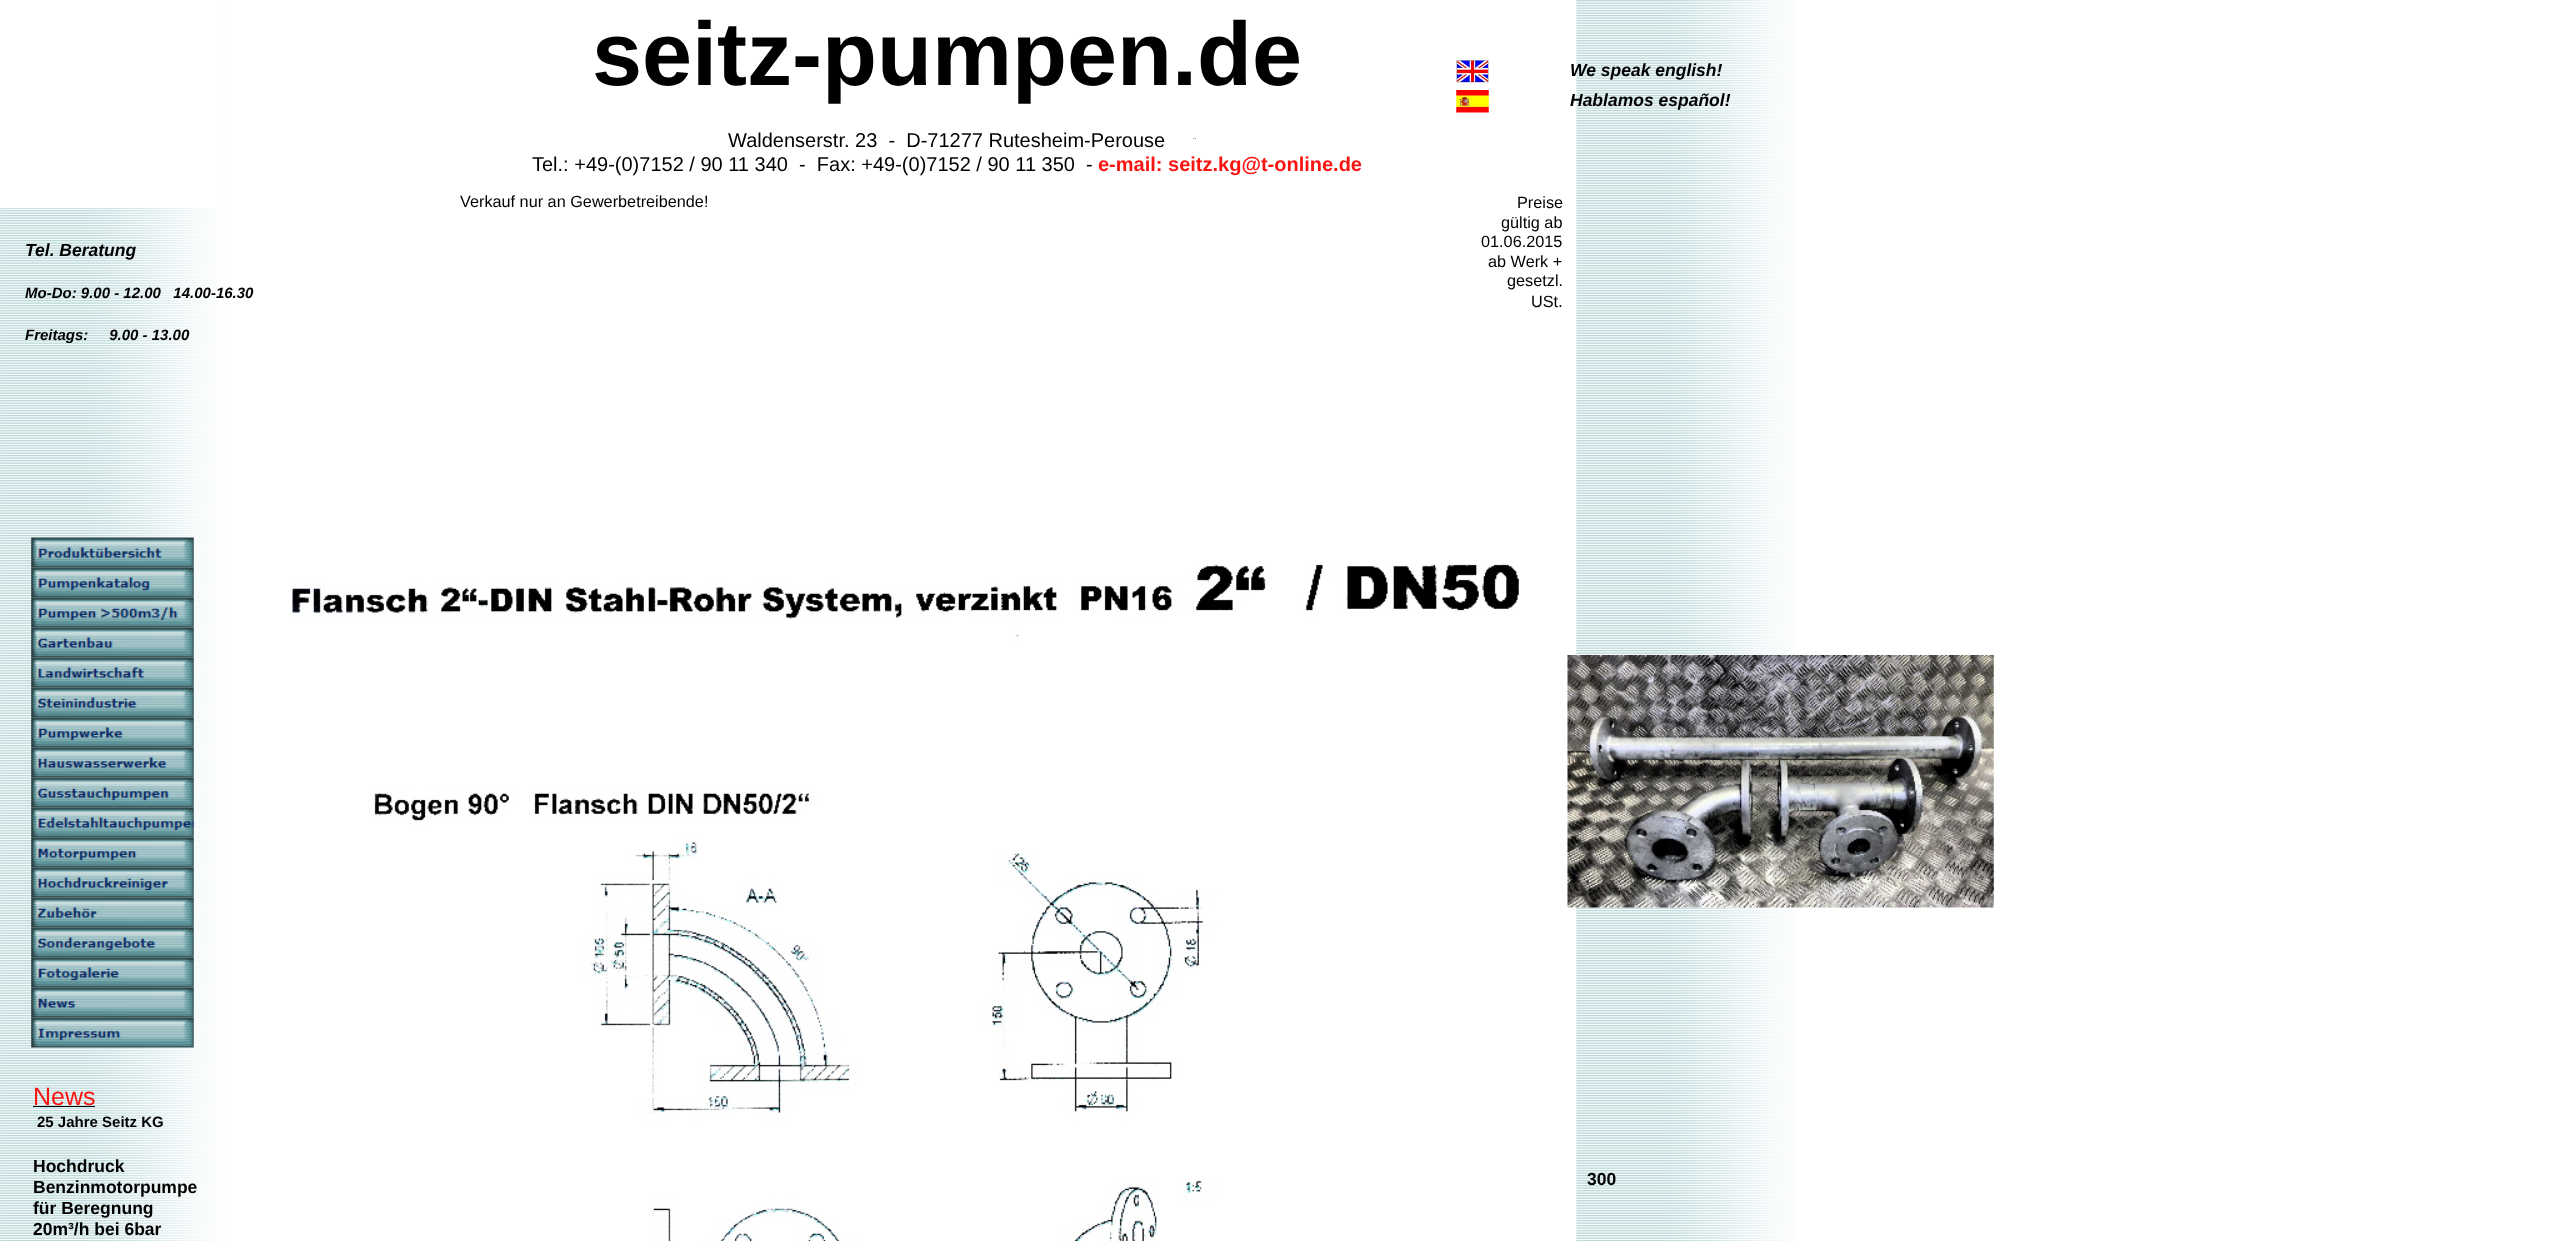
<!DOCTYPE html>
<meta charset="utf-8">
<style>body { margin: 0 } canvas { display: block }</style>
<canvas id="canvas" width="2565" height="1241"></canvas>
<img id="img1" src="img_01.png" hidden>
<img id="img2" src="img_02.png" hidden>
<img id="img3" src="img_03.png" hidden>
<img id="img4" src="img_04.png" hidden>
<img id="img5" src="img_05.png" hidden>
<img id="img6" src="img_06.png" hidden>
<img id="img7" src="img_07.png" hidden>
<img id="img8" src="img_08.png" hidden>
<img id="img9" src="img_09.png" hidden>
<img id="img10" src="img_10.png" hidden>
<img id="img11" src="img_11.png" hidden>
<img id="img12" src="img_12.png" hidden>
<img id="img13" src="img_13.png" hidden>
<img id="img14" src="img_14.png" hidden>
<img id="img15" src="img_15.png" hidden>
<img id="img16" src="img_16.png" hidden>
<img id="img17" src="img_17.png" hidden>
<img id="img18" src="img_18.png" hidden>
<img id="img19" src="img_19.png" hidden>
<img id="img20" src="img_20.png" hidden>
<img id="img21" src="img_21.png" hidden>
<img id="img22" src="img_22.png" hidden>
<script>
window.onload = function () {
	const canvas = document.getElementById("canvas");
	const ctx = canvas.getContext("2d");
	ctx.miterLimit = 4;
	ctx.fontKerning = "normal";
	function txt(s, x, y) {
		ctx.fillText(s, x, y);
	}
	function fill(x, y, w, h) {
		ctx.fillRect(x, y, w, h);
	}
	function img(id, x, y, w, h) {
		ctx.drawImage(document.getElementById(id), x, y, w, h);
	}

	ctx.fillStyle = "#FFFFFF";
	fill(0, 0, 2565, 1241);
	img("img1", 0, 0, 1795, 1241);
	fill(0, 0, 219, 208);
	ctx.fillStyle = "#9F9F9F";
	fill(1193, 138, 3, 1);
	ctx.fillStyle = "#EEEEEE";
	fill(1194, 138, 1, 1);
	img("img2", 1456, 60, 33, 23);
	img("img3", 1456, 90, 33, 23);
	img("img4", 31, 537, 163, 31);
	img("img5", 31, 567, 163, 31);
	img("img6", 31, 597, 163, 31);
	img("img7", 31, 627, 163, 31);
	img("img8", 31, 657, 163, 31);
	img("img9", 31, 687, 163, 31);
	img("img10", 31, 717, 163, 31);
	img("img11", 31, 747, 163, 31);
	img("img12", 31, 777, 163, 31);
	img("img13", 31, 807, 163, 31);
	img("img14", 31, 837, 163, 31);
	img("img15", 31, 867, 163, 31);
	img("img16", 31, 897, 163, 31);
	img("img17", 31, 927, 163, 31);
	img("img18", 31, 957, 163, 31);
	img("img19", 31, 987, 163, 31);
	img("img20", 31, 1017, 163, 31);
	ctx.fillStyle = "#000000";
	fill(33, 1106, 62, 1);
	img("img21", 291, 563, 1228, 678);
	img("img22", 1567, 655, 427, 253);
	ctx.font = "italic bold 17.5px Liberation Sans";
	txt("Tel. Beratung", 25, 256);
	ctx.font = "italic bold 15px Liberation Sans";
	txt("Mo-Do: 9.00 - 12.00   14.00-16.30", 25, 298);
	txt("Freitags:     9.00 - 13.00", 25, 340);
	ctx.font = "bold 90px Liberation Sans";
	txt("seitz-pumpen.de", 592, 85);
	ctx.font = "20px Liberation Sans";
	txt("Waldenserstr. 23  -  D-71277 Rutesheim-Perouse", 728, 147);
	txt("Tel.: +49-(0)7152 / 90 11 340  -  Fax: +49-(0)7152 / 90 11 350  -", 532, 171);
	ctx.font = "bold 20px Liberation Sans";
	ctx.fillStyle = "#F91410";
	txt("e-mail: seitz.kg@t-online.de", 1098, 171);
	ctx.font = "16.25px Liberation Sans";
	ctx.fillStyle = "#000000";
	txt("Verkauf nur an Gewerbetreibende!", 460, 207);
	txt("Preise", 1517, 208);
	txt("gültig ab", 1501, 228);
	txt("01.06.2015", 1481, 247);
	txt("ab Werk +", 1488, 267);
	txt("gesetzl.", 1507, 286);
	txt("USt", 1531, 307);
	ctx.font = "17.5px Liberation Sans";
	txt(".", 1558, 307);
	ctx.font = "italic bold 17.5px Liberation Sans";
	txt("We speak english!", 1570, 76);
	txt("Hablamos español!", 1570, 106);
	ctx.font = "25px Liberation Sans";
	ctx.fillStyle = "#F91410";
	txt("News", 33, 1105);
	ctx.font = "bold 15px Liberation Sans";
	ctx.fillStyle = "#000000";
	txt("25 Jahre Seitz KG", 37, 1127);
	ctx.font = "bold 17.5px Liberation Sans";
	txt("Hochdruck", 33, 1172);
	txt("Benzinmotorpumpe", 33, 1193);
	txt("für Beregnung", 33, 1214);
	txt("20m³/h bei 6bar", 33, 1235);
	txt("300", 1587, 1185);
};
</script>
